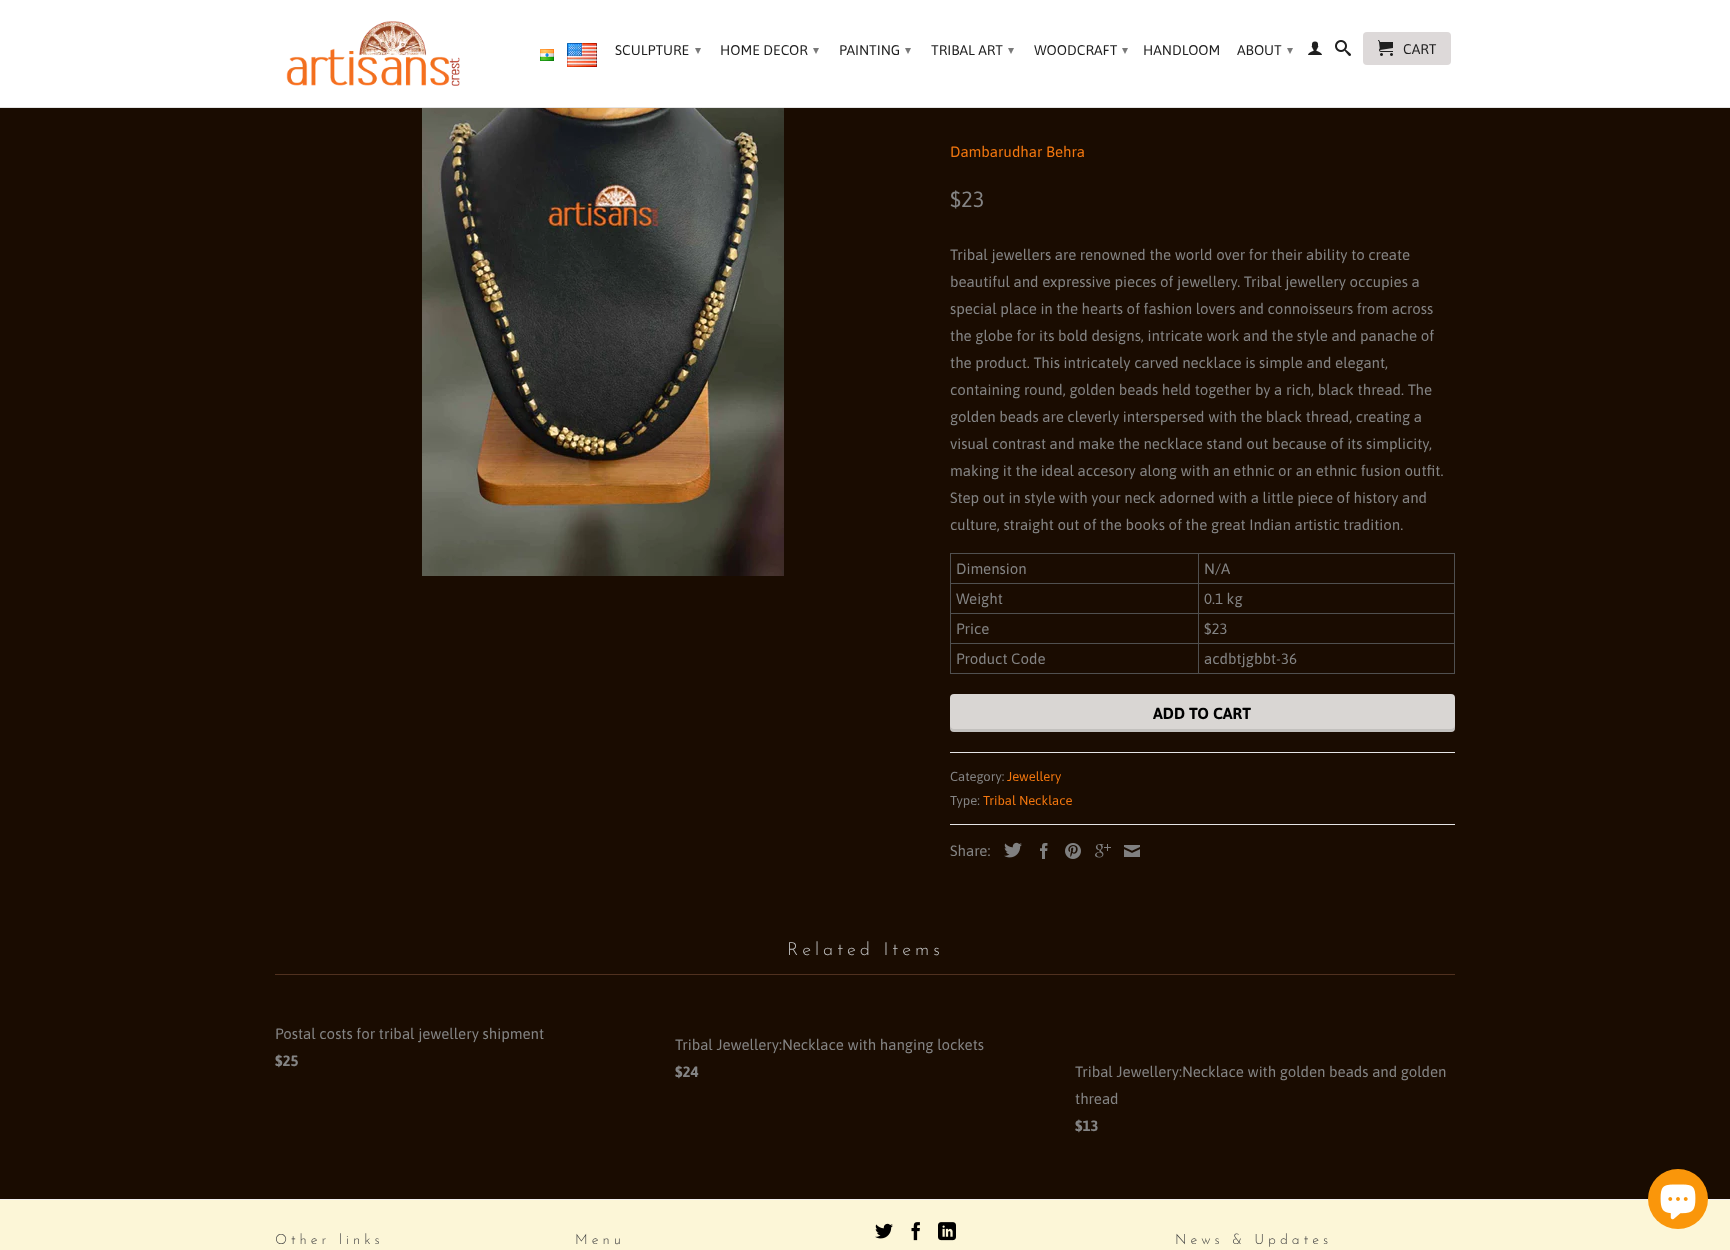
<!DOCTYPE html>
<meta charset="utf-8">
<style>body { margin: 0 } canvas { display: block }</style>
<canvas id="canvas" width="1730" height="1250"></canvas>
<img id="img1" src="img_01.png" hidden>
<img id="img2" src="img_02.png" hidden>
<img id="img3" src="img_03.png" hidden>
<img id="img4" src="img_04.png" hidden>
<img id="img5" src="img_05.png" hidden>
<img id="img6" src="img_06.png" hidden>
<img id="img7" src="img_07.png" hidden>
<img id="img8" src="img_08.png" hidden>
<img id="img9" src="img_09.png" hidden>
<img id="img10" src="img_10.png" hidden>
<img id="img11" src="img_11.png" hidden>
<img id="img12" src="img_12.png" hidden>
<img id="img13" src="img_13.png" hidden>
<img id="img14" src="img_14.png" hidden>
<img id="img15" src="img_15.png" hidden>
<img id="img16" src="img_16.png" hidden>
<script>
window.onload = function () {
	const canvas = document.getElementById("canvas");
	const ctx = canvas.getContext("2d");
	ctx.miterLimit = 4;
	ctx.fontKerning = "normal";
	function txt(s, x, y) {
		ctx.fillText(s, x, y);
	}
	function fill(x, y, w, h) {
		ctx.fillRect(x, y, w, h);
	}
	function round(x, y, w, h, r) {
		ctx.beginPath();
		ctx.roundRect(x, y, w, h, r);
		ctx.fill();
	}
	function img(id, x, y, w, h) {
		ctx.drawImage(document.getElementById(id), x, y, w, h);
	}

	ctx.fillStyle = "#1A0C01";
	fill(0, 0, 1730, 1250);
	ctx.fillStyle = "#FFFFFF";
	fill(0, 0, 1730, 107);
	ctx.fillStyle = "#E5E5E5";
	fill(0, 107, 1730, 1);
	img("img1", 286, 21, 174, 65);
	img("img2", 540, 49, 14, 12);
	img("img3", 567, 43, 30, 24);
	img("img4", 1308, 41, 14, 14);
	img("img5", 1335, 40, 16, 16);
	ctx.fillStyle = "#DDD9D9";
	round(1363, 32, 88, 33, 4);
	img("img6", 1378, 40, 15, 16);
	img("img7", 422, 108, 362, 468);
	ctx.fillStyle = "#505050";
	fill(950, 553, 505, 1);
	fill(950, 583, 505, 1);
	fill(950, 613, 505, 1);
	fill(950, 643, 505, 1);
	fill(950, 673, 505, 1);
	fill(1198, 553, 1, 121);
	fill(950, 553, 1, 121);
	fill(1454, 553, 1, 121);
	ctx.fillStyle = "#D9D6D3";
	round(950, 694, 505, 38, 4);
	ctx.fillStyle = "rgba(0, 0, 0, 0.1)";
	ctx.beginPath();
	ctx.moveTo(950, 725);
	ctx.lineTo(950, 728);
	ctx.bezierCurveTo(950, 730, 952, 732, 954, 732);
	ctx.lineTo(1451, 732);
	ctx.bezierCurveTo(1453, 732, 1455, 730, 1455, 728);
	ctx.lineTo(1455, 725);
	ctx.bezierCurveTo(1455, 727, 1453, 729, 1451, 729);
	ctx.lineTo(954, 729);
	ctx.bezierCurveTo(952, 729, 950, 727, 950, 725);
	ctx.closePath();
	ctx.fill();
	ctx.fillStyle = "#E5E5E5";
	fill(950, 752, 505, 1);
	fill(950, 824, 505, 1);
	img("img8", 1004, 842, 18, 16);
	img("img9", 1040, 843, 8, 16);
	img("img10", 1065, 843, 16, 16);
	img("img11", 1095, 844, 16, 14);
	img("img12", 1124, 845, 16, 12);
	ctx.fillStyle = "#50311F";
	fill(275, 974, 1180, 1);
	ctx.fillStyle = "#FCF6D7";
	fill(0, 1200, 1730, 50);
	ctx.fillStyle = "#F1F1F1";
	fill(0, 1199, 1730, 1);
	img("img13", 875, 1223, 18, 16);
	img("img14", 911, 1222, 9, 19);
	img("img15", 938, 1222, 18, 19);
	ctx.fillStyle = "#FA960A";
	ctx.beginPath();
	ctx.arc(1678, 1199, 30, 0, Math.PI * 2);
	ctx.fill();
	img("img16", 1660, 1184, 36, 36);
	ctx.font = "14px Asap";
	ctx.fillStyle = "#1F1F1F";
	txt("SCULPTURE", 615, 55);
	ctx.font = "12px DejaVu Sans";
	ctx.fillStyle = "#797979";
	txt("▾", 695, 54);
	ctx.font = "14px Asap";
	ctx.fillStyle = "#1F1F1F";
	txt("HOME DECOR", 720, 55);
	ctx.font = "12px DejaVu Sans";
	ctx.fillStyle = "#797979";
	txt("▾", 813, 54);
	ctx.font = "14px Asap";
	ctx.fillStyle = "#1F1F1F";
	txt("PAINTING", 839, 55);
	ctx.font = "12px DejaVu Sans";
	ctx.fillStyle = "#797979";
	txt("▾", 905, 54);
	ctx.font = "14px Asap";
	ctx.fillStyle = "#1F1F1F";
	txt("TRIBAL ART", 931, 55);
	ctx.font = "12px DejaVu Sans";
	ctx.fillStyle = "#797979";
	txt("▾", 1008, 54);
	ctx.font = "14px Asap";
	ctx.fillStyle = "#1F1F1F";
	txt("WOODCRAFT", 1034, 55);
	ctx.font = "12px DejaVu Sans";
	ctx.fillStyle = "#797979";
	txt("▾", 1122, 54);
	ctx.font = "14px Asap";
	ctx.fillStyle = "#1F1F1F";
	txt("HANDLOOM", 1143, 55);
	txt("ABOUT", 1237, 55);
	ctx.font = "12px DejaVu Sans";
	ctx.fillStyle = "#797979";
	txt("▾", 1287, 54);
	ctx.font = "14px Asap";
	ctx.fillStyle = "#1F1F1F";
	txt("CART", 1403, 54);
	ctx.font = "15px Asap";
	ctx.fillStyle = "#F3770F";
	txt("Dambarudhar Behra", 950, 157);
	ctx.font = "22px Asap";
	ctx.fillStyle = "#848484";
	txt("$23", 950, 207);
	ctx.font = "15px Asap";
	txt("Tribal jewellers are renowned the world over for their ability to create", 950, 260);
	txt("beautiful and expressive pieces of jewellery. Tribal jewellery occupies a", 950, 287);
	txt("special place in the hearts of fashion lovers and connoisseurs from across", 950, 314);
	txt("the globe for its bold designs, intricate work and the style and panache of", 950, 341);
	txt("the product. This intricately carved necklace is simple and elegant,", 950, 368);
	txt("containing round, golden beads held together by a rich, black thread. The", 950, 395);
	txt("golden beads are cleverly interspersed with the black thread, creating a", 950, 422);
	txt("visual contrast and make the necklace stand out because of its simplicity,", 950, 449);
	txt("making it the ideal accesory along with an ethnic or an ethnic fusion outfit.", 950, 476);
	txt("Step out in style with your neck adorned with a little piece of history and", 950, 503);
	txt("culture, straight out of the books of the great Indian artistic tradition.", 950, 530);
	txt("Dimension", 956, 574);
	txt("N/A", 1204, 574);
	txt("Weight", 956, 604);
	txt("0.1 kg", 1204, 604);
	txt("Price", 956, 634);
	txt("$23", 1204, 634);
	txt("Product Code", 956, 664);
	txt("acdbtjgbbt-36", 1204, 664);
	ctx.font = "bold 16px Asap";
	ctx.fillStyle = "#000000";
	txt("ADD TO CART", 1153, 719);
	ctx.font = "13px Asap";
	ctx.fillStyle = "#848484";
	txt("Category:", 950, 781);
	ctx.fillStyle = "#F3770F";
	txt("Jewellery", 1007, 781);
	ctx.fillStyle = "#848484";
	txt("Type:", 950, 805);
	ctx.fillStyle = "#F3770F";
	txt("Tribal Necklace", 983, 805);
	ctx.font = "15px Asap";
	ctx.fillStyle = "#848484";
	txt("Share:", 950, 856);
	ctx.letterSpacing = "4px";
	ctx.font = "300 18px Josefin Sans";
	ctx.fillStyle = "#C1C1C1";
	txt("Related Items", 787, 955);
	ctx.letterSpacing = "0px";
	ctx.font = "15px Asap";
	ctx.fillStyle = "#848484";
	txt("Postal costs for tribal jewellery shipment", 275, 1039);
	ctx.font = "bold 15px Asap";
	txt("$25", 275, 1066);
	ctx.font = "15px Asap";
	txt("Tribal Jewellery:Necklace with hanging lockets", 675, 1050);
	ctx.font = "bold 15px Asap";
	txt("$24", 675, 1077);
	ctx.font = "15px Asap";
	txt("Tribal Jewellery:Necklace with golden beads and golden", 1075, 1077);
	txt("thread", 1075, 1104);
	ctx.font = "bold 15px Asap";
	txt("$13", 1075, 1131);
	ctx.letterSpacing = "4px";
	ctx.font = "300 14px Josefin Sans";
	ctx.fillStyle = "#444444";
	txt("Other links", 275, 1244);
	txt("Menu", 575, 1244);
	txt("News & Updates", 1175, 1244);
};
</script>
